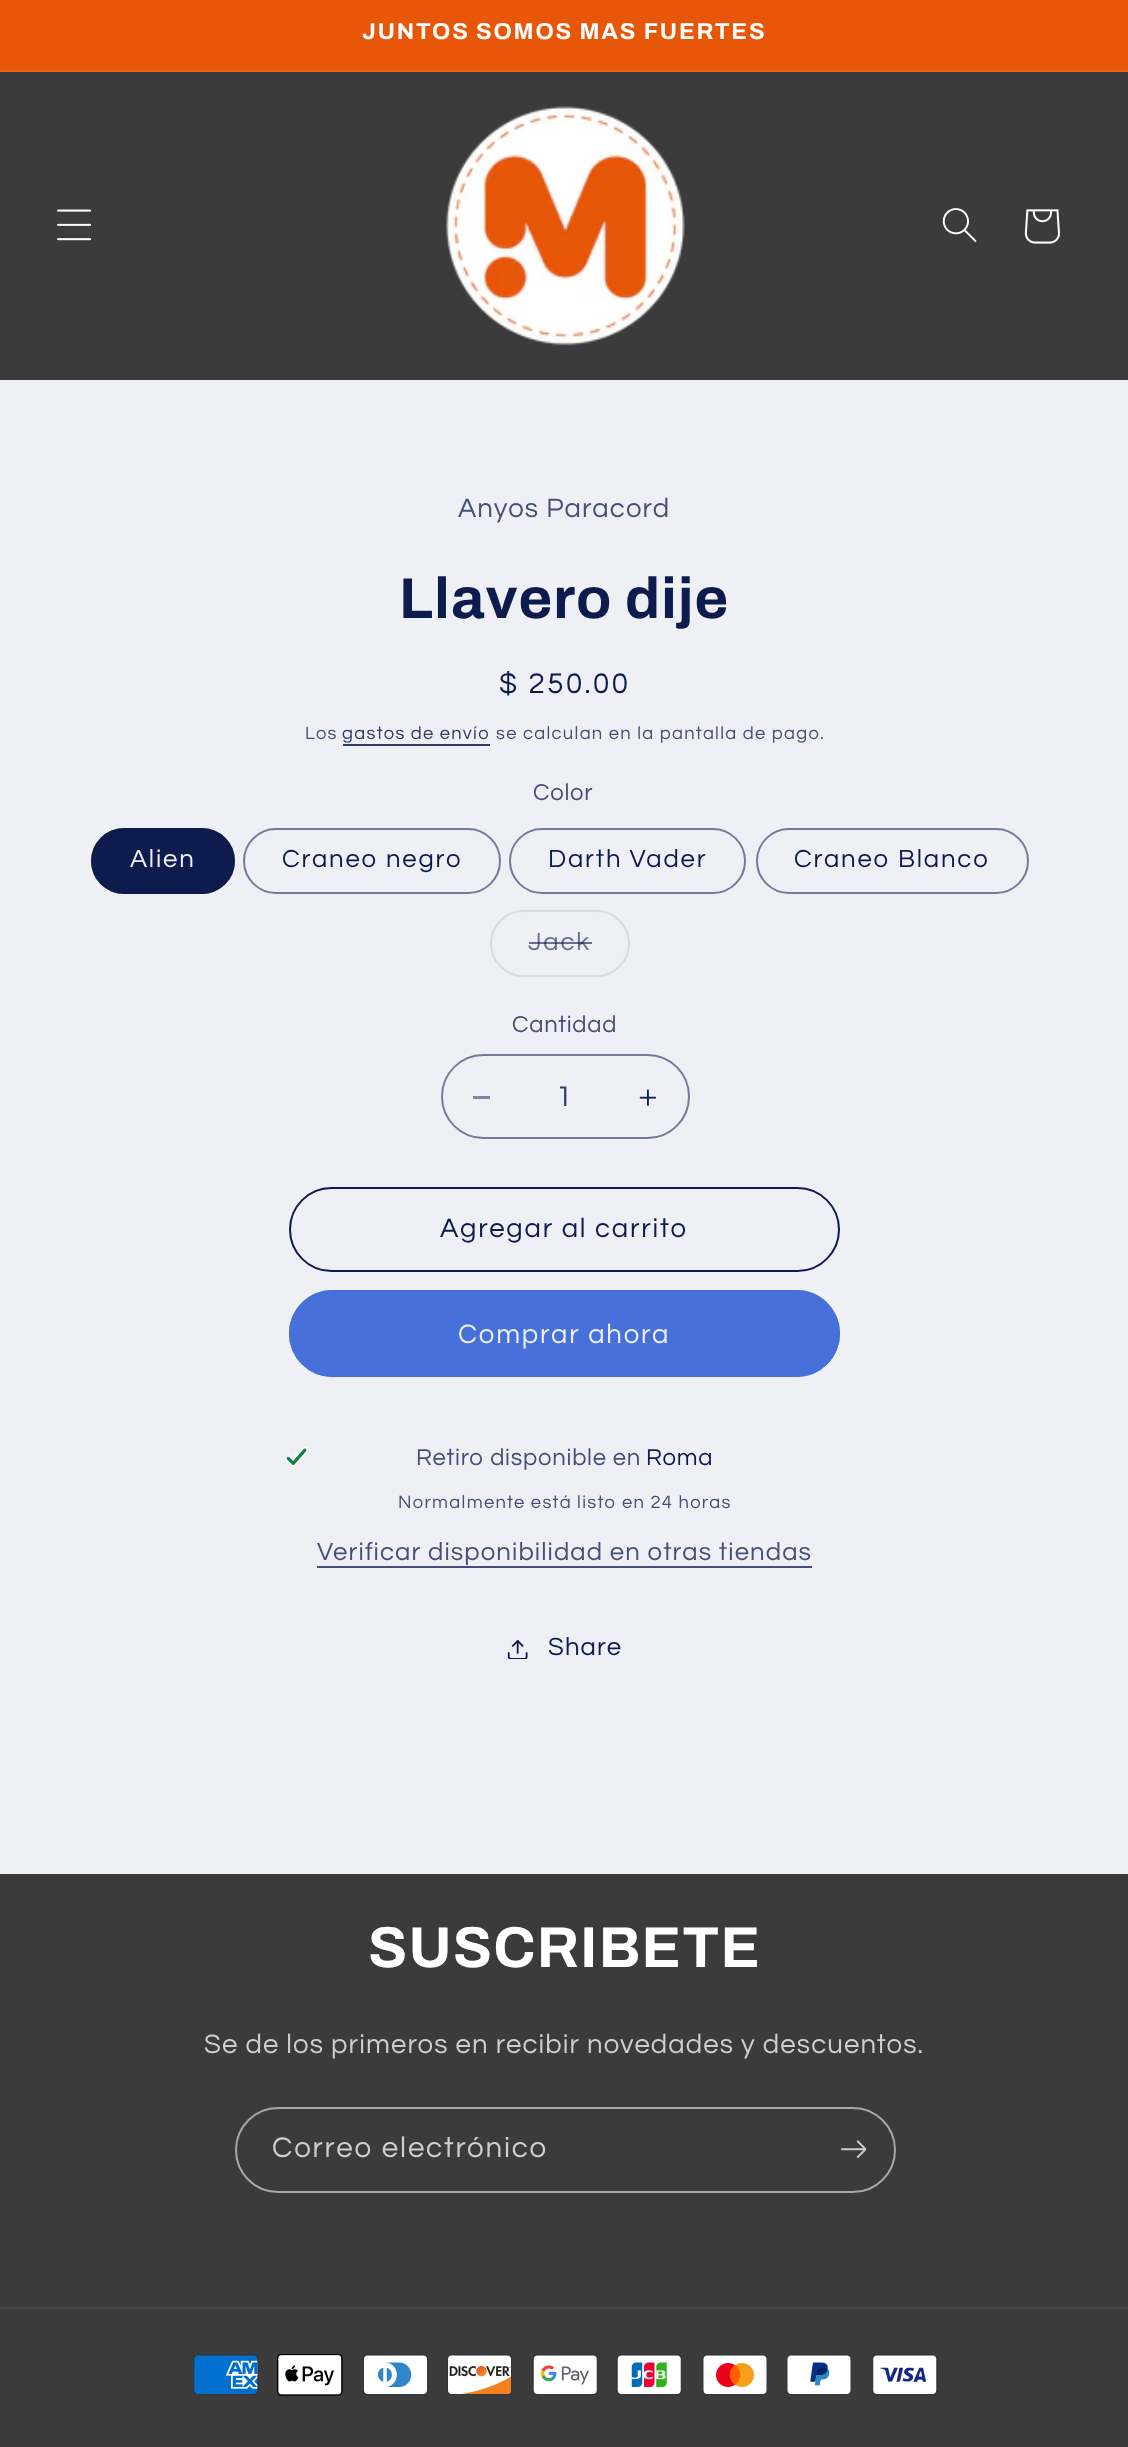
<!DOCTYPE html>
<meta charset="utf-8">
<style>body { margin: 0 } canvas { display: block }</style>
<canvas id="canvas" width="1128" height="2447"></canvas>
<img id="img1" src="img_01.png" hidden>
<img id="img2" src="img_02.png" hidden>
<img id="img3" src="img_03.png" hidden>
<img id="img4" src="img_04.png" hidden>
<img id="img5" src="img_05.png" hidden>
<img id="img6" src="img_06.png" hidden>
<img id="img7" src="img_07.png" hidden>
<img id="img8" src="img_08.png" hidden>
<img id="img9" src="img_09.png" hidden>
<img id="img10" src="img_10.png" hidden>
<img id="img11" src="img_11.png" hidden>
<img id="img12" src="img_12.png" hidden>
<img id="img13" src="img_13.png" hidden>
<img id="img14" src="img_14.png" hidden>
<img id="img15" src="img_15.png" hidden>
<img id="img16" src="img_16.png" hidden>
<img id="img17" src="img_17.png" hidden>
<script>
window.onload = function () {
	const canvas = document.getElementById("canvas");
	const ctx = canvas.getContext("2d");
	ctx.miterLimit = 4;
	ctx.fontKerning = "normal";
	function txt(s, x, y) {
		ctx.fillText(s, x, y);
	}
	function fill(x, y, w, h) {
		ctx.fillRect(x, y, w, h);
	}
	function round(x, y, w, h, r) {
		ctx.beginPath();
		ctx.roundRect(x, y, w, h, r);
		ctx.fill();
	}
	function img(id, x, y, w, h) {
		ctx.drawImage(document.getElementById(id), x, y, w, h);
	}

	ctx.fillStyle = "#EFF0F5";
	fill(0, 0, 1128, 2447);
	ctx.fillStyle = "#E85708";
	fill(0, 0, 1128, 70);
	ctx.fillStyle = "#EA641C";
	fill(0, 70, 1128, 2);
	ctx.fillStyle = "#3B3B3B";
	fill(0, 72, 1128, 308);
	img("img1", 57, 209, 35, 32);
	img("img2", 445, 106, 240, 240);
	img("img3", 942, 208, 35, 34);
	img("img4", 1024, 209, 36, 35);
	ctx.fillStyle = "#303B66";
	fill(343, 744, 147, 2);
	ctx.fillStyle = "#0E1B4D";
	round(91, 828, 144, 66, 33);
	ctx.beginPath();
	ctx.roundRect(92, 829, 142, 64, 32);
	ctx.strokeStyle = "rgba(14, 27, 77, 0.55)";
	ctx.lineWidth = 2;
	ctx.stroke();
	ctx.beginPath();
	ctx.roundRect(244, 829, 256, 64, 32);
	ctx.strokeStyle = "#737B99";
	ctx.stroke();
	ctx.beginPath();
	ctx.roundRect(510, 829, 235, 64, 32);
	ctx.stroke();
	ctx.beginPath();
	ctx.roundRect(757, 829, 271, 64, 32);
	ctx.stroke();
	ctx.beginPath();
	ctx.roundRect(491, 911, 138, 65, 32.5);
	ctx.strokeStyle = "#D8DBE4";
	ctx.stroke();
	ctx.fillStyle = "#7F86A1";
	fill(473, 1096, 17, 3);
	img("img5", 639, 1089, 17, 17);
	ctx.beginPath();
	ctx.roundRect(442, 1055, 247, 83, 41.5);
	ctx.strokeStyle = "#737B99";
	ctx.stroke();
	ctx.beginPath();
	ctx.roundRect(290, 1188, 549, 83, 41.5);
	ctx.strokeStyle = "#0E1B4D";
	ctx.stroke();
	ctx.fillStyle = "#4770DB";
	round(289, 1290, 551, 87, 43.5);
	ctx.beginPath();
	ctx.roundRect(290, 1291, 549, 85, 42.5);
	ctx.strokeStyle = "#4770DB";
	ctx.stroke();
	img("img6", 285, 1447, 23, 20);
	ctx.fillStyle = "#465077";
	fill(317, 1566, 495, 2);
	img("img7", 507, 1640, 21, 19);
	ctx.fillStyle = "#3B3B3B";
	fill(0, 1874, 1128, 573);
	ctx.fillStyle = "#4B4B4B";
	fill(0, 2307, 1128, 2);
	img("img8", 193, 2354, 66, 41);
	img("img9", 277, 2354, 66, 42);
	img("img10", 363, 2354, 65, 41);
	img("img11", 447, 2354, 65, 41);
	img("img12", 532, 2354, 66, 41);
	img("img13", 616, 2354, 66, 41);
	img("img14", 702, 2354, 66, 41);
	img("img15", 786, 2354, 66, 41);
	img("img16", 872, 2354, 66, 41);
	ctx.beginPath();
	ctx.roundRect(236, 2108, 659, 84, 42);
	ctx.strokeStyle = "#A7A7A7";
	ctx.stroke();
	img("img17", 841, 2140, 25, 18);
	ctx.letterSpacing = "1.8px";
	ctx.font = "bold 23.1px Archivo";
	ctx.fillStyle = "#FFFFFF";
	txt("JUNTOS SOMOS MAS FUERTES", 362, 39);
	ctx.letterSpacing = "1.1px";
	ctx.font = "27.55px Questrial";
	ctx.fillStyle = "#465077";
	txt("Anyos Paracord", 458, 517);
	ctx.letterSpacing = "1.2px";
	ctx.font = "bold 57.75px Archivo";
	ctx.fillStyle = "#0E1B4D";
	txt("Llavero dije", 399, 618);
	ctx.letterSpacing = "2.5px";
	ctx.font = "29.5px Questrial";
	txt("$ 250.00", 499, 693);
	ctx.letterSpacing = "1.3px";
	ctx.font = "18.4px Questrial";
	ctx.fillStyle = "#465077";
	txt("Los", 305, 739);
	ctx.fillStyle = "#303B66";
	txt("gastos de envío", 342, 739);
	ctx.fillStyle = "#465077";
	txt("se calculan en la pantalla de pago.", 496, 739);
	ctx.letterSpacing = "0.75px";
	ctx.font = "23.9px Questrial";
	txt("Color", 533, 800);
	ctx.letterSpacing = "1.8px";
	ctx.font = "25.75px Questrial";
	ctx.fillStyle = "#EFF0F5";
	txt("Alien", 130, 867);
	ctx.fillStyle = "#0E1B4D";
	txt("Craneo negro", 282, 867);
	txt("Darth Vader", 548, 867);
	txt("Craneo Blanco", 794, 867);
	ctx.fillStyle = "#687090";
	txt("Jack", 528, 950);
	ctx.fillStyle = "rgba(14, 27, 77, 0.6)";
	fill(529, 942, 63, 2);
	ctx.letterSpacing = "0.75px";
	ctx.font = "23.9px Questrial";
	ctx.fillStyle = "#465077";
	txt("Cantidad", 512, 1032);
	ctx.letterSpacing = "0px";
	ctx.font = "29.5px Questrial";
	ctx.fillStyle = "#303B66";
	txt("1", 556, 1106);
	ctx.letterSpacing = "1.8px";
	ctx.font = "27.55px Questrial";
	ctx.fillStyle = "#0E1B4D";
	txt("Agregar al carrito", 440, 1237);
	ctx.fillStyle = "#EFF0F5";
	txt("Comprar ahora", 458, 1343);
	ctx.letterSpacing = "0.75px";
	ctx.font = "23.9px Questrial";
	ctx.fillStyle = "#465077";
	txt("Retiro disponible en", 416, 1465);
	ctx.fillStyle = "#0E1B4D";
	txt("Roma", 646, 1465);
	ctx.letterSpacing = "1.3px";
	ctx.font = "18.4px Questrial";
	ctx.fillStyle = "#465077";
	txt("Normalmente está listo en 24 horas", 398, 1508);
	ctx.letterSpacing = "1.1px";
	ctx.font = "25.75px Questrial";
	txt("Verificar disponibilidad en otras tiendas", 317, 1560);
	ctx.fillStyle = "#0E1B4D";
	txt("Share", 548, 1655);
	ctx.letterSpacing = "1.2px";
	ctx.font = "bold 57.75px Archivo";
	ctx.fillStyle = "#FFFFFF";
	txt("SUSCRIBETE", 368, 1967);
	ctx.letterSpacing = "1.1px";
	ctx.font = "27.55px Questrial";
	ctx.fillStyle = "#CECECE";
	txt("Se de los primeros en recibir novedades y descuentos.", 204, 2053);
	ctx.letterSpacing = "1.8px";
	ctx.font = "29.5px Questrial";
	txt("Correo electrónico", 272, 2157);
};
</script>
